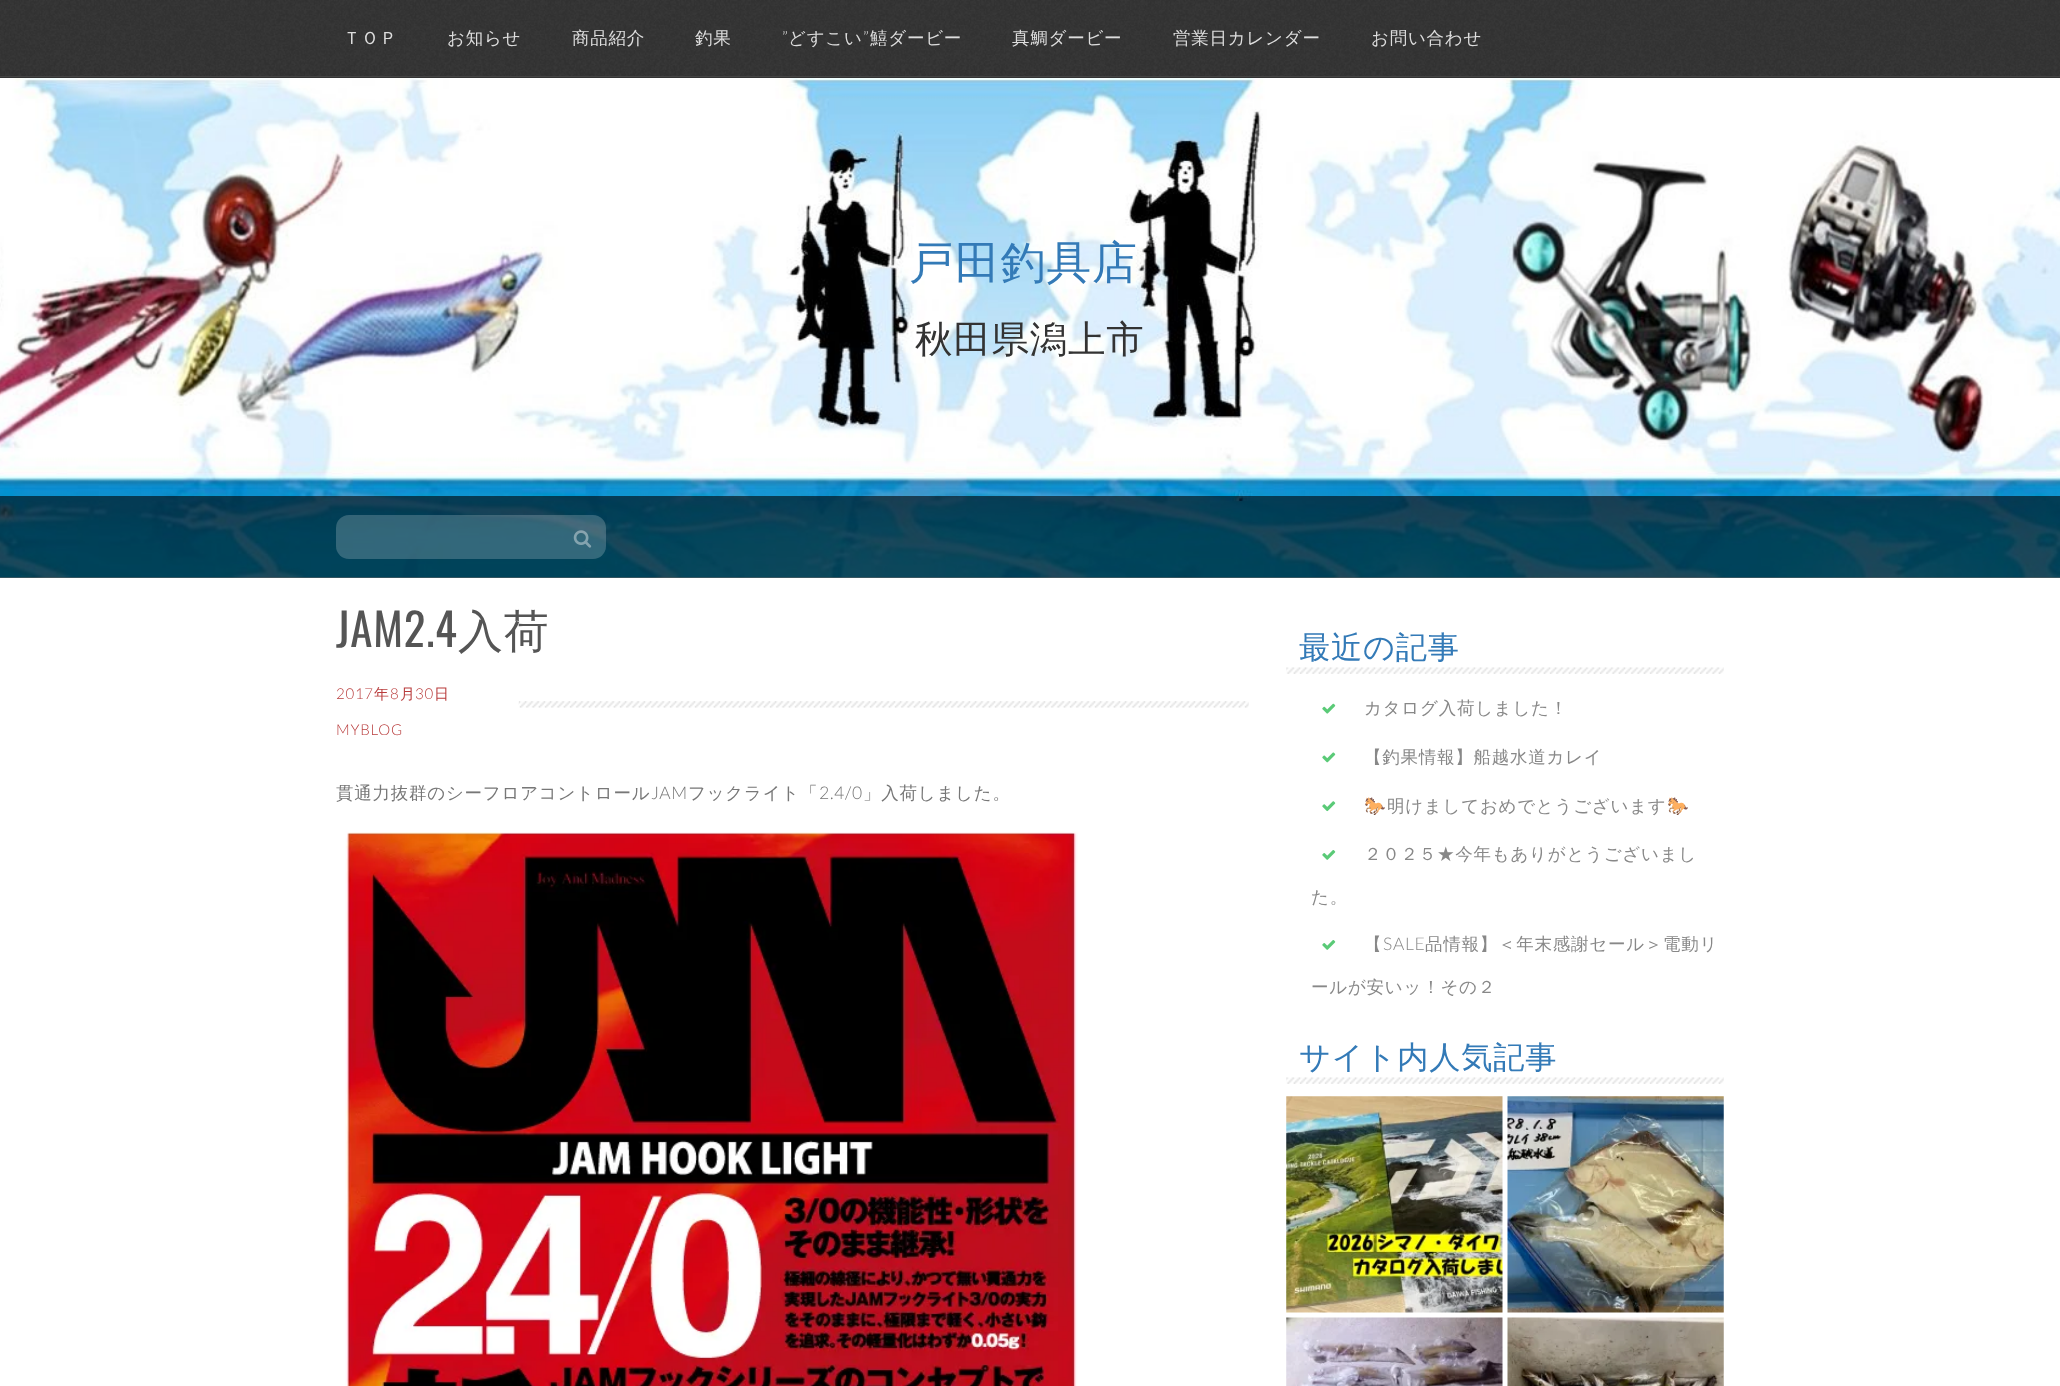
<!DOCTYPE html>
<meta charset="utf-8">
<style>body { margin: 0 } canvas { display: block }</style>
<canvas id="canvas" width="2060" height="1386"></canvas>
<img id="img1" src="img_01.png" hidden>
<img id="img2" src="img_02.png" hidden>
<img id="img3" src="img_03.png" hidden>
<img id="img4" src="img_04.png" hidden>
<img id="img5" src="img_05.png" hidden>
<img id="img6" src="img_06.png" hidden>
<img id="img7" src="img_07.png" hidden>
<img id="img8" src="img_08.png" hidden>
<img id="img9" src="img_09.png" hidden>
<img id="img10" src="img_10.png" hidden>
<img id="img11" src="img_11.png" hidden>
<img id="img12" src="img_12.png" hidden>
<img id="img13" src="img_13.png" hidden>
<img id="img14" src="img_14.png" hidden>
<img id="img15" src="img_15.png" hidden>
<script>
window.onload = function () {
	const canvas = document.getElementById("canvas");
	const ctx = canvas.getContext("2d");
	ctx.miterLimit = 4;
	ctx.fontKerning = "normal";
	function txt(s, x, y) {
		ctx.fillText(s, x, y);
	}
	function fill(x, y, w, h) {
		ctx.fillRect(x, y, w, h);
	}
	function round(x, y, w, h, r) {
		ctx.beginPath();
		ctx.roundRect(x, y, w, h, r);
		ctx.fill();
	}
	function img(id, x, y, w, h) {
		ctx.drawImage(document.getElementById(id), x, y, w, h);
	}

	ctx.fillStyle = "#FFFFFF";
	fill(0, 0, 2060, 1386);
	ctx.fillStyle = "#333333";
	fill(0, 0, 2060, 78);
	img("img1", 0, 0, 2060, 76);
	ctx.fillStyle = "#444444";
	fill(0, 76, 2060, 1);
	img("img2", 0, 78, 2060, 500);
	ctx.fillStyle = "rgba(0, 0, 0, 0.6)";
	fill(0, 496, 2060, 82);
	ctx.fillStyle = "rgba(255, 255, 255, 0.2)";
	round(336, 515, 270, 44, 13);
	img("img3", 573, 530, 19, 18);
	img("img4", 518, 701, 731, 7);
	img("img5", 345, 831, 733, 555);
	img("img6", 1286, 667, 438, 7);
	img("img7", 1322, 703, 14, 11);
	img("img8", 1322, 752, 14, 11);
	img("img9", 1322, 801, 14, 11);
	img("img10", 1322, 850, 14, 10);
	img("img10", 1322, 940, 14, 10);
	img("img11", 1286, 1077, 438, 7);
	img("img12", 1286, 1096, 217, 217);
	img("img13", 1507, 1096, 217, 217);
	img("img14", 1286, 1317, 217, 69);
	img("img15", 1507, 1317, 217, 69);
	ctx.letterSpacing = "0.75px";
	ctx.font = "500 17.5px WenQuanYi Zen Hei";
	ctx.fillStyle = "#DDDDDD";
	txt("ＴＯＰ", 343, 44);
	txt("お知らせ", 447, 44);
	txt("商品紹介", 572, 44);
	txt("釣果", 695, 44);
	ctx.font = "300 17.5px Lato";
	txt("”", 782, 44);
	ctx.font = "500 17.5px WenQuanYi Zen Hei";
	txt("どすこい", 788, 44);
	ctx.font = "300 17.5px Lato";
	txt("”", 863, 44);
	ctx.font = "500 17.5px WenQuanYi Zen Hei";
	txt("鱚ダービー", 870, 44);
	txt("真鯛ダービー", 1012, 44);
	txt("営業日カレンダー", 1173, 44);
	txt("お問い合わせ", 1371, 44);
	ctx.font = "500 45px WenQuanYi Zen Hei";
	ctx.fillStyle = "#337AB7";
	txt("戸田釣具店", 909, 278);
	ctx.font = "500 37.5px WenQuanYi Zen Hei";
	ctx.fillStyle = "#333333";
	txt("秋田県潟上市", 915, 352);
	ctx.font = "45px Oswald";
	ctx.fillStyle = "#555555";
	txt("JAM2.4", 336, 647);
	ctx.font = "500 45px WenQuanYi Zen Hei";
	txt("入荷", 458, 647);
	ctx.font = "300 15px Lato";
	ctx.fillStyle = "#B93D3D";
	txt("2017", 336, 699);
	ctx.font = "500 15px WenQuanYi Zen Hei";
	txt("年", 374, 699);
	ctx.font = "300 15px Lato";
	txt("8", 390, 699);
	ctx.font = "500 15px WenQuanYi Zen Hei";
	txt("月", 400, 699);
	ctx.font = "300 15px Lato";
	txt("30", 415, 699);
	ctx.font = "500 15px WenQuanYi Zen Hei";
	txt("日", 434, 699);
	ctx.font = "300 15px Lato";
	txt("MYBLOG", 336, 735);
	ctx.font = "500 17.5px WenQuanYi Zen Hei";
	ctx.fillStyle = "#777777";
	txt("貫通力抜群のシーフロアコントロール", 336, 799);
	ctx.font = "300 17.5px Lato";
	txt("JAM", 651, 799);
	ctx.font = "500 17.5px WenQuanYi Zen Hei";
	txt("フックライト「", 688, 799);
	ctx.font = "300 17.5px Lato";
	txt("2.4/0", 819, 799);
	ctx.font = "500 17.5px WenQuanYi Zen Hei";
	txt("」入荷しました。", 863, 799);
	ctx.font = "500 31.25px WenQuanYi Zen Hei";
	ctx.fillStyle = "#337AB7";
	txt("最近の記事", 1299, 658);
	ctx.font = "500 17.5px WenQuanYi Zen Hei";
	ctx.fillStyle = "#888888";
	txt("カタログ入荷しました！", 1364, 714);
	txt("【釣果情報】船越水道カレイ", 1364, 763);
	ctx.font = "17.5px Noto Color Emoji";
	txt("🐎", 1364, 812);
	ctx.font = "500 17.5px WenQuanYi Zen Hei";
	txt("明けましておめでとうございます", 1387, 812);
	ctx.font = "17.5px Noto Color Emoji";
	txt("🐎", 1667, 812);
	ctx.font = "500 17.5px WenQuanYi Zen Hei";
	txt("２０２５★今年もありがとうございまし", 1364, 860);
	txt("た。", 1311, 903);
	txt("【", 1364, 950);
	ctx.font = "300 17.5px Lato";
	txt("SALE", 1383, 950);
	ctx.font = "500 17.5px WenQuanYi Zen Hei";
	txt("品情報】＜年末感謝セール＞電動リ", 1425, 950);
	txt("ールが安いッ！その２", 1311, 993);
	ctx.font = "500 31.25px WenQuanYi Zen Hei";
	ctx.fillStyle = "#337AB7";
	txt("サイト内人気記事", 1299, 1068);
};
</script>
